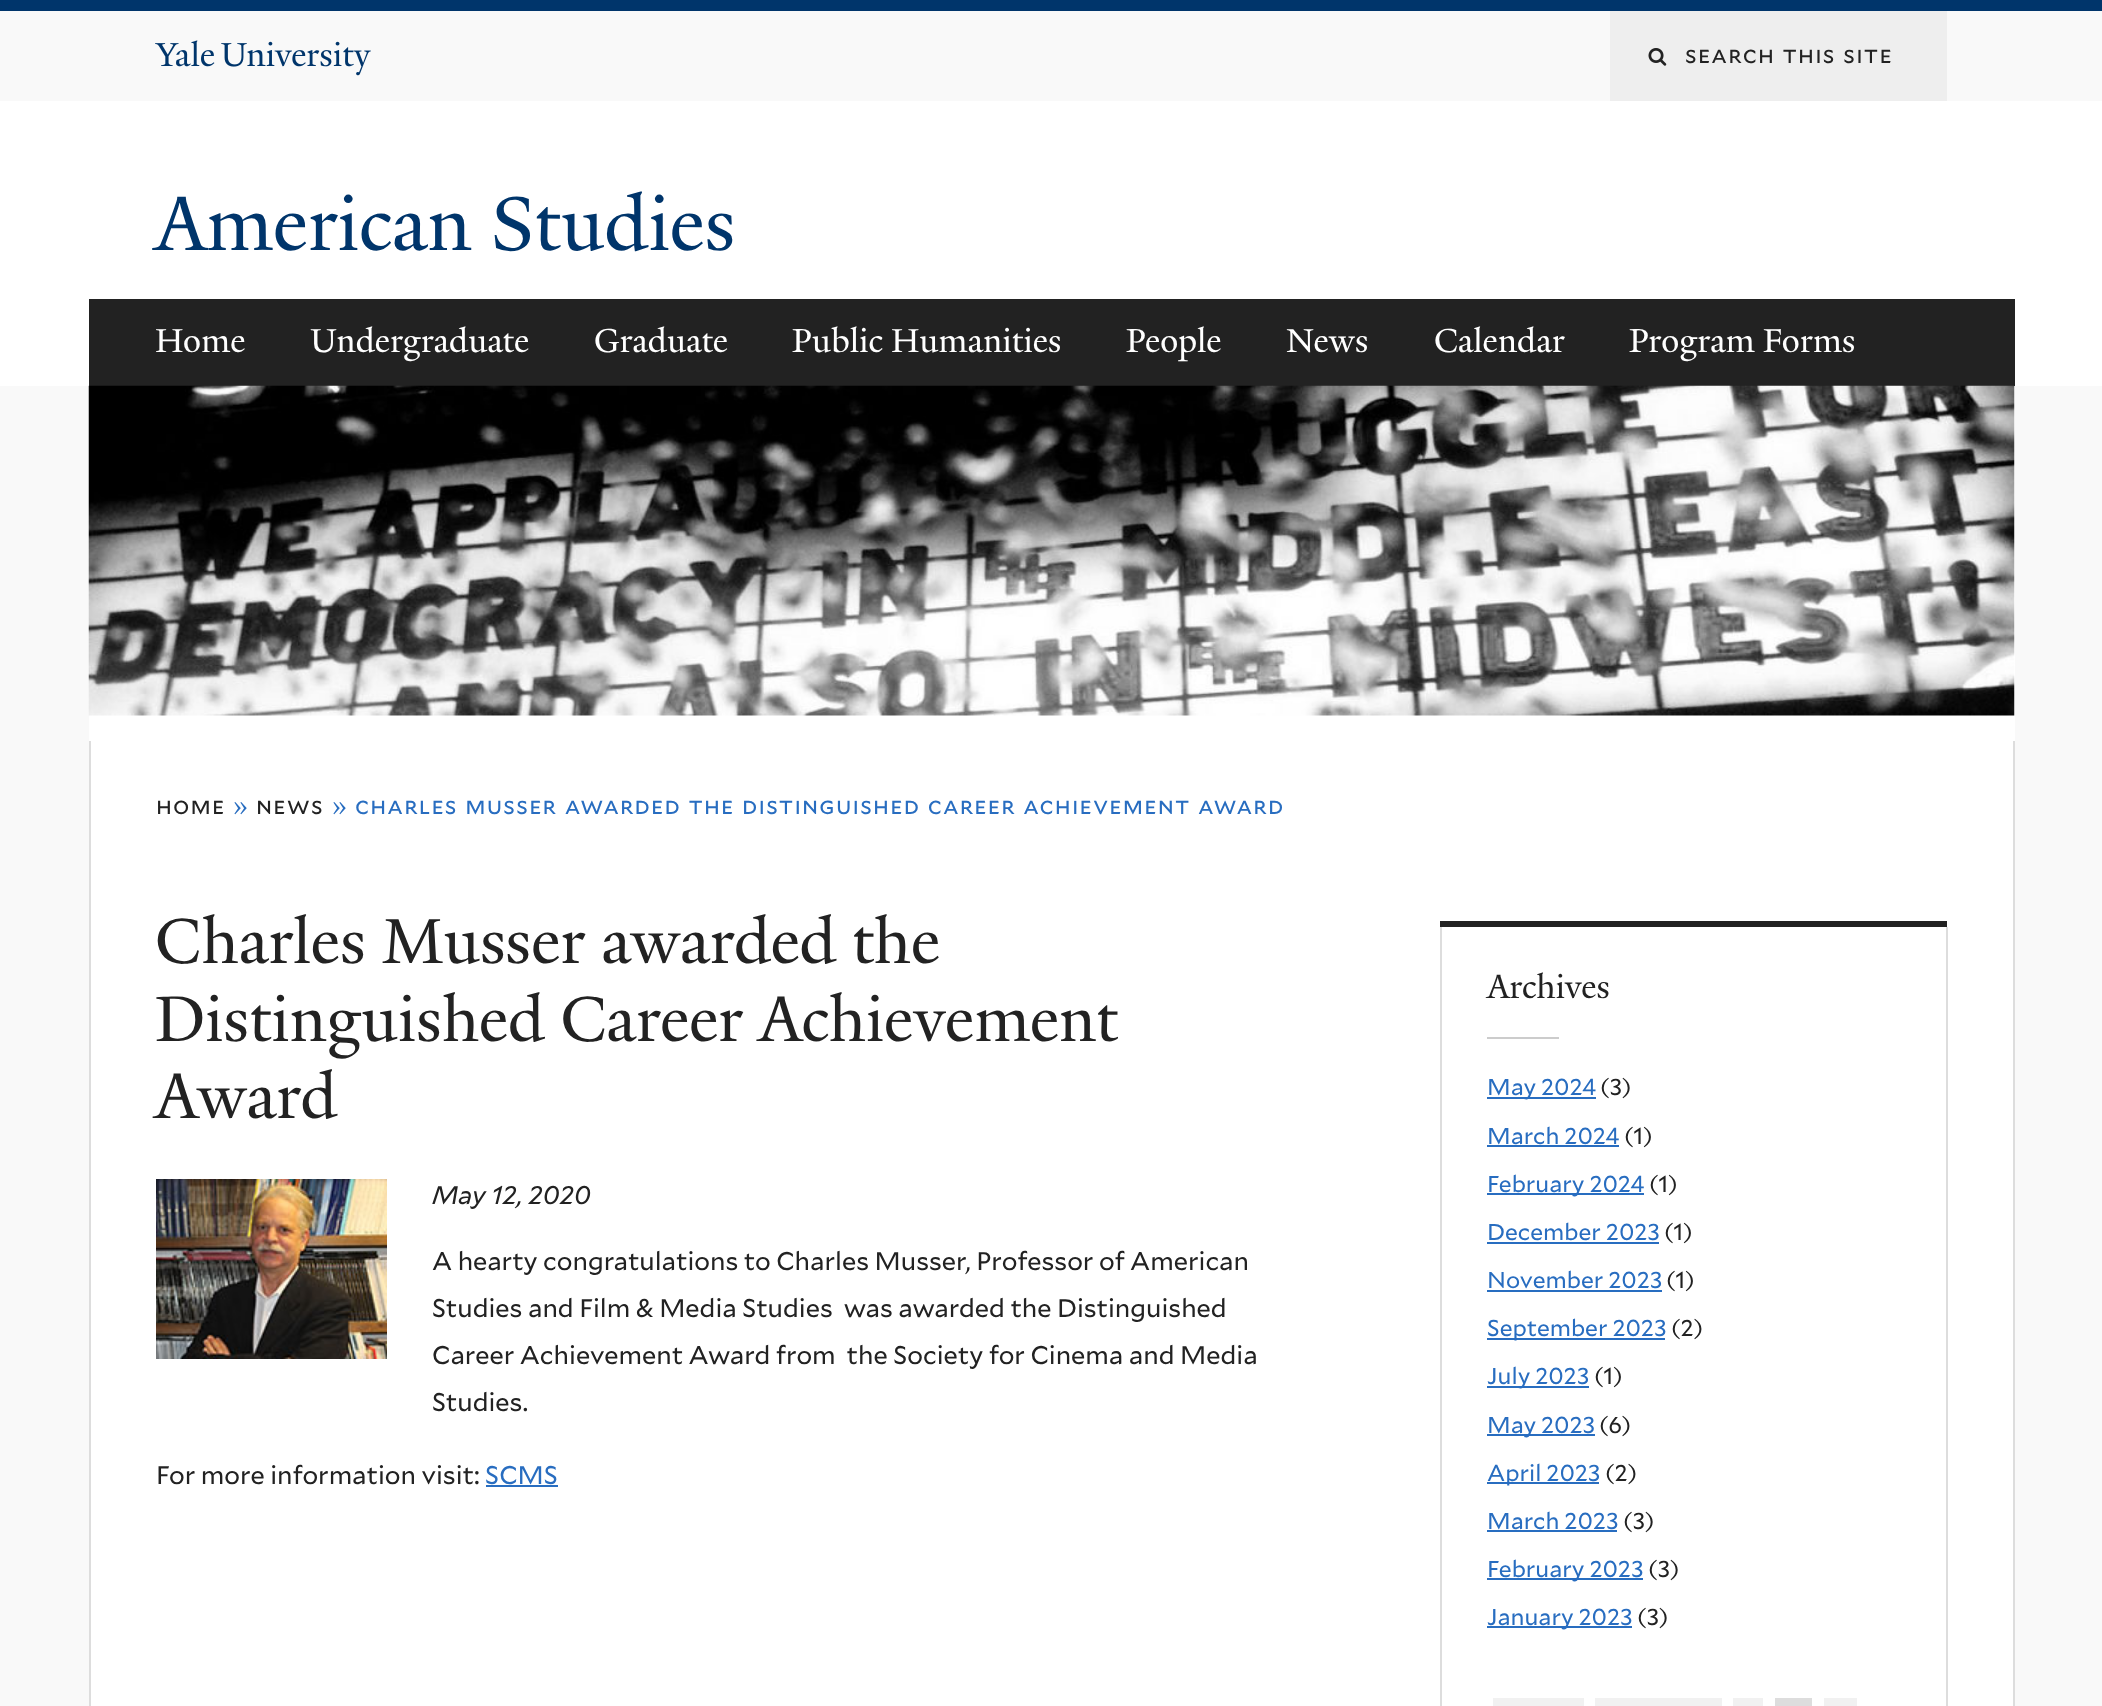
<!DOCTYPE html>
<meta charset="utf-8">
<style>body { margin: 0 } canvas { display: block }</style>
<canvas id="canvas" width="2102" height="1706"></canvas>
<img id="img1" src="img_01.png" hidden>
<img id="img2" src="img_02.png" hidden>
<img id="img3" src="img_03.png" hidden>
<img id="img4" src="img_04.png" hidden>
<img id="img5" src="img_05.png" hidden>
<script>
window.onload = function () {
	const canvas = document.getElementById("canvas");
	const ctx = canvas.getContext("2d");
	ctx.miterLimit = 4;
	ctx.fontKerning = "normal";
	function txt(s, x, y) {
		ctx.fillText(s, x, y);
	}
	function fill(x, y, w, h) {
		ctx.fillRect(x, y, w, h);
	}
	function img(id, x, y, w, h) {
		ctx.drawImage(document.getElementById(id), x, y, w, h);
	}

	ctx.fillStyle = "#FFFFFF";
	fill(0, 0, 2102, 1706);
	ctx.fillStyle = "#00356B";
	fill(0, 0, 2102, 11);
	ctx.fillStyle = "#F9F9F9";
	fill(0, 11, 2102, 90);
	img("img1", 155, 40, 60, 27);
	img("img2", 221, 41, 150, 35);
	ctx.fillStyle = "#EEEEEE";
	fill(1610, 11, 337, 90);
	img("img3", 1648, 48, 19, 18);
	ctx.fillStyle = "#222222";
	fill(89, 299, 1926, 87);
	ctx.fillStyle = "#F9F9F9";
	fill(0, 386, 2102, 1320);
	ctx.fillStyle = "#FFFFFF";
	fill(89, 386, 1926, 355);
	img("img4", 88, 385, 1927, 331);
	fill(91, 741, 1922, 965);
	ctx.fillStyle = "#DDDDDD";
	fill(2013, 741, 2, 965);
	fill(89, 741, 2, 965);
	img("img5", 156, 1179, 231, 180);
	ctx.fillStyle = "#286DC0";
	fill(486, 1485, 72, 2);
	ctx.fillStyle = "#222222";
	fill(1440, 921, 507, 6);
	ctx.fillStyle = "#DDDDDD";
	fill(1946, 927, 2, 779);
	fill(1440, 927, 2, 779);
	ctx.fillStyle = "#CCCCCC";
	fill(1487, 1037, 72, 2);
	ctx.fillStyle = "#286DC0";
	fill(1487, 1097, 109, 2);
	fill(1487, 1145, 132, 2);
	fill(1487, 1193, 157, 2);
	fill(1487, 1242, 172, 2);
	fill(1487, 1290, 175, 2);
	fill(1487, 1338, 178, 2);
	fill(1487, 1386, 102, 2);
	fill(1487, 1434, 108, 2);
	fill(1487, 1482, 112, 2);
	fill(1487, 1530, 130, 2);
	fill(1487, 1578, 156, 2);
	fill(1487, 1626, 145, 2);
	ctx.fillStyle = "#F1F1F1";
	fill(1493, 1698, 91, 8);
	fill(1595, 1698, 127, 8);
	fill(1733, 1698, 30, 8);
	ctx.fillStyle = "#DDDDDD";
	fill(1775, 1698, 37, 8);
	ctx.fillStyle = "#F1F1F1";
	fill(1824, 1698, 33, 8);
	ctx.letterSpacing = "1.18px";
	ctx.wordSpacing = "1.25px";
	ctx.font = "23.6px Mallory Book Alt";
	ctx.fillStyle = "#222222";
	txt("search this site", 1685, 63);
	ctx.letterSpacing = "0px";
	ctx.wordSpacing = "0px";
	ctx.font = "82.5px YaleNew";
	ctx.fillStyle = "#00356B";
	txt("American Studies", 155, 250);
	ctx.font = "36px YaleNew";
	ctx.fillStyle = "#FFFFFF";
	txt("Home", 155, 352);
	txt("Undergraduate", 310, 352);
	txt("Graduate", 594, 352);
	txt("Public Humanities", 792, 352);
	txt("People", 1126, 352);
	txt("News", 1286, 352);
	txt("Calendar", 1434, 352);
	txt("Program Forms", 1629, 352);
	ctx.letterSpacing = "1.18px";
	ctx.font = "23.6px Mallory Book Alt";
	ctx.fillStyle = "#222222";
	txt("home", 156, 814);
	ctx.font = "23.6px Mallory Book";
	ctx.fillStyle = "#286DC0";
	txt("»", 233, 814);
	ctx.font = "23.6px Mallory Book Alt";
	ctx.fillStyle = "#222222";
	txt("news", 256, 814);
	ctx.font = "23.6px Mallory Book";
	ctx.fillStyle = "#286DC0";
	txt("»", 332, 814);
	ctx.wordSpacing = "1.25px";
	ctx.font = "23.6px Mallory Book Alt";
	txt("charles musser awarded the distinguished career achievement award", 355, 814);
	ctx.letterSpacing = "0px";
	ctx.wordSpacing = "0px";
	ctx.font = "69px YaleNew";
	ctx.fillStyle = "#222222";
	txt("Charles Musser awarded the", 155, 963);
	txt("Distinguished Career Achievement", 155, 1041);
	txt("Award", 155, 1118);
	ctx.font = "italic 25.5px Mallory Book";
	txt("May 12, 2020", 432, 1204);
	ctx.font = "25.5px Mallory Book";
	txt("A hearty congratulations to Charles Musser, Professor of American", 432, 1270);
	txt("Studies and Film & Media Studies  was awarded the Distinguished", 432, 1317);
	txt("Career Achievement Award from  the Society for Cinema and Media", 432, 1364);
	txt("Studies.", 432, 1411);
	txt("For more information visit:", 156, 1484);
	ctx.fillStyle = "#286DC0";
	txt("SCMS", 485, 1484);
	ctx.font = "36px YaleNew";
	ctx.fillStyle = "#222222";
	txt("Archives", 1487, 998);
	ctx.font = "23px Mallory Book";
	ctx.fillStyle = "#286DC0";
	txt("May 2024", 1487, 1095);
	ctx.fillStyle = "#222222";
	txt("(3)", 1600, 1095);
	ctx.fillStyle = "#286DC0";
	txt("March 2024", 1487, 1144);
	ctx.fillStyle = "#222222";
	txt("(1)", 1624, 1144);
	ctx.fillStyle = "#286DC0";
	txt("February 2024", 1487, 1192);
	ctx.fillStyle = "#222222";
	txt("(1)", 1649, 1192);
	ctx.fillStyle = "#286DC0";
	txt("December 2023", 1487, 1240);
	ctx.fillStyle = "#222222";
	txt("(1)", 1664, 1240);
	ctx.fillStyle = "#286DC0";
	txt("November 2023", 1487, 1288);
	ctx.fillStyle = "#222222";
	txt("(1)", 1666, 1288);
	ctx.fillStyle = "#286DC0";
	txt("September 2023", 1487, 1336);
	ctx.fillStyle = "#222222";
	txt("(2)", 1671, 1336);
	ctx.fillStyle = "#286DC0";
	txt("July 2023", 1487, 1384);
	ctx.fillStyle = "#222222";
	txt("(1)", 1594, 1384);
	ctx.fillStyle = "#286DC0";
	txt("May 2023", 1487, 1433);
	ctx.fillStyle = "#222222";
	txt("(6)", 1599, 1433);
	ctx.fillStyle = "#286DC0";
	txt("April 2023", 1487, 1481);
	ctx.fillStyle = "#222222";
	txt("(2)", 1605, 1481);
	ctx.fillStyle = "#286DC0";
	txt("March 2023", 1487, 1529);
	ctx.fillStyle = "#222222";
	txt("(3)", 1623, 1529);
	ctx.fillStyle = "#286DC0";
	txt("February 2023", 1487, 1577);
	ctx.fillStyle = "#222222";
	txt("(3)", 1648, 1577);
	ctx.fillStyle = "#286DC0";
	txt("January 2023", 1487, 1625);
	ctx.fillStyle = "#222222";
	txt("(3)", 1637, 1625);
};
</script>
